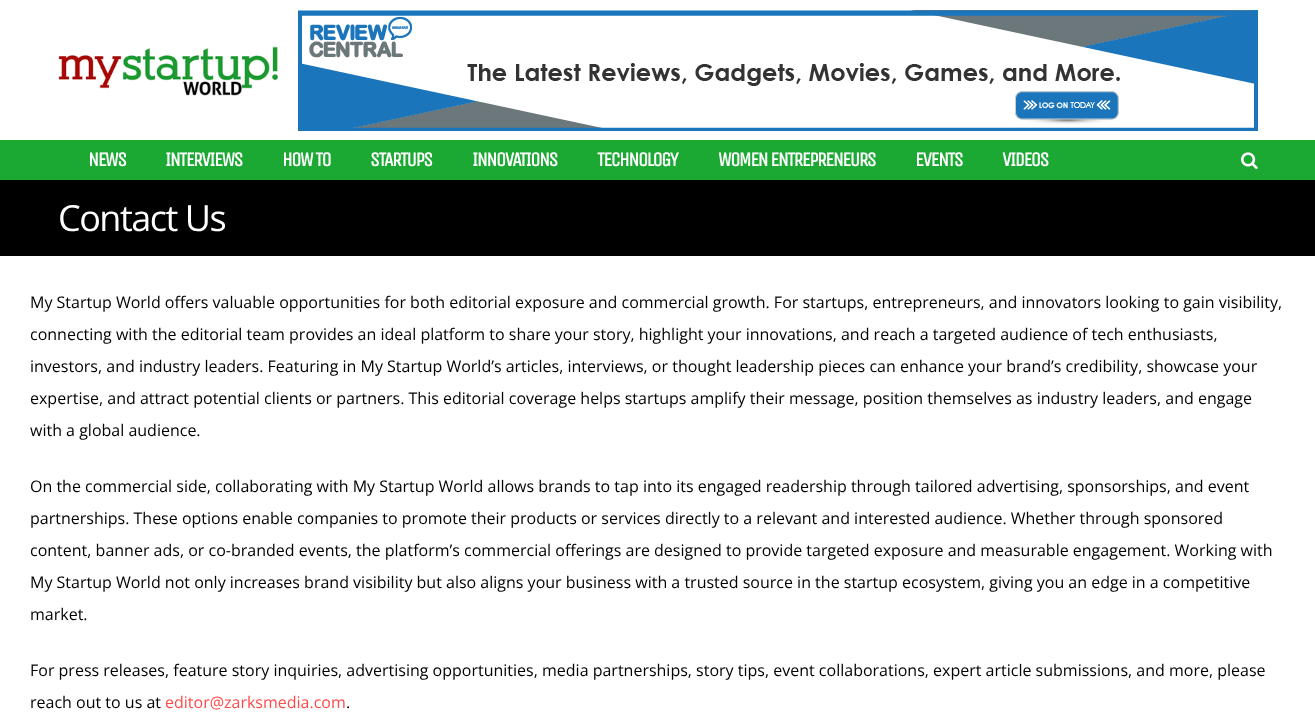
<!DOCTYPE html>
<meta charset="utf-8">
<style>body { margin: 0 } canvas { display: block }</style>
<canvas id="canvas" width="1315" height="723"></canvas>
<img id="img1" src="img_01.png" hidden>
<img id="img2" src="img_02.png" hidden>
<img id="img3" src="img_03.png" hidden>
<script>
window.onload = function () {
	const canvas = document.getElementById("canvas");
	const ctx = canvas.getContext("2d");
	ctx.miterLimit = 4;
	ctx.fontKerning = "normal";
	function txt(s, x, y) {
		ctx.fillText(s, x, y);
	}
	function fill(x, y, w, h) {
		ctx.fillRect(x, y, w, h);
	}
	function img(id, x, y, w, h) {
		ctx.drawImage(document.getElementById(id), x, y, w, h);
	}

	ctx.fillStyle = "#000000";
	fill(0, 0, 1315, 723);
	ctx.fillStyle = "#FFFFFF";
	fill(0, 0, 1315, 140);
	img("img1", 58, 46, 220, 50);
	img("img2", 298, 10, 960, 121);
	ctx.fillStyle = "#1CA933";
	fill(0, 140, 1315, 40);
	img("img3", 1241, 152, 17, 18);
	ctx.fillStyle = "#FFFFFF";
	fill(0, 256, 1315, 467);
	ctx.letterSpacing = "-1.5px";
	ctx.font = "bold 20px Unica One";
	txt("NEWS", 88, 166);
	txt("INTERVIEWS", 165, 166);
	txt("HOW TO", 282, 166);
	txt("STARTUPS", 370, 166);
	txt("INNOVATIONS", 472, 166);
	txt("TECHNOLOGY", 597, 166);
	txt("WOMEN ENTREPRENEURS", 718, 166);
	txt("EVENTS", 915, 166);
	txt("VIDEOS", 1002, 166);
	ctx.font = "36px Open Sans";
	txt("Contact Us", 58, 231);
	ctx.letterSpacing = "0px";
	ctx.font = "16px Open Sans";
	ctx.fillStyle = "#000000";
	txt("My Startup World offers valuable opportunities for both editorial exposure and commercial growth. For startups, entrepreneurs, and innovators looking to gain visibility,", 30, 308);
	txt("connecting with the editorial team provides an ideal platform to share your story, highlight your innovations, and reach a targeted audience of tech enthusiasts,", 30, 340);
	txt("investors, and industry leaders. Featuring in My Startup World’s articles, interviews, or thought leadership pieces can enhance your brand’s credibility, showcase your", 30, 372);
	txt("expertise, and attract potential clients or partners. This editorial coverage helps startups amplify their message, position themselves as industry leaders, and engage", 30, 404);
	txt("with a global audience.", 30, 436);
	txt("On the commercial side, collaborating with My Startup World allows brands to tap into its engaged readership through tailored advertising, sponsorships, and event", 30, 492);
	txt("partnerships. These options enable companies to promote their products or services directly to a relevant and interested audience. Whether through sponsored", 30, 524);
	txt("content, banner ads, or co-branded events, the platform’s commercial offerings are designed to provide targeted exposure and measurable engagement. Working with", 30, 556);
	txt("My Startup World not only increases brand visibility but also aligns your business with a trusted source in the startup ecosystem, giving you an edge in a competitive", 30, 588);
	txt("market.", 30, 620);
	txt("For press releases, feature story inquiries, advertising opportunities, media partnerships, story tips, event collaborations, expert article submissions, and more, please", 30, 676);
	txt("reach out to us at", 30, 708);
	ctx.fillStyle = "#FE4A49";
	txt("editor@zarksmedia.com", 165, 708);
	ctx.fillStyle = "#000000";
	txt(".", 346, 708);
};
</script>
